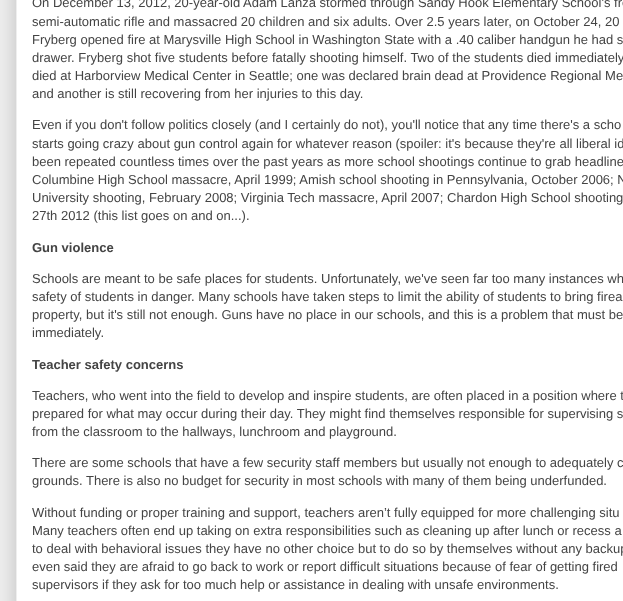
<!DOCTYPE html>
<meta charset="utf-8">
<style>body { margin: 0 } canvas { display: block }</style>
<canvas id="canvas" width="623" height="601"></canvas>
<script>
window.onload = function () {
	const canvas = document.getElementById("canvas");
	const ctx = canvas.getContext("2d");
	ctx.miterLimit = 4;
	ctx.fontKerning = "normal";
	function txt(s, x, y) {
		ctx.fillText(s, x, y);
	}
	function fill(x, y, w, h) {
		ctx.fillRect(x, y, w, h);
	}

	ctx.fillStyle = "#EEEEEE";
	fill(0, 0, 623, 601);
	ctx.fillStyle = "rgba(0, 0, 0, 0.2)";
	ctx.filter = "blur(10px)";
	ctx.beginPath();
	ctx.rect(16, -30, 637, 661);
	ctx.fill();
	ctx.filter = "none";
	ctx.fillStyle = "#FFFFFF";
	ctx.beginPath();
	ctx.rect(16.5, -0.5, 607, 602);
	ctx.fill();
	ctx.strokeStyle = "#EEEEEE";
	ctx.stroke();
	ctx.font = "13px Liberation Sans";
	ctx.fillStyle = "#444444";
	txt("On December 13, 2012, 20-year-old Adam Lanza stormed through Sandy Hook Elementary School's fro", 32, 7);
	txt("semi-automatic rifle and massacred 20 children and six adults. Over 2.5 years later, on October 24, 20", 32, 26);
	txt("Fryberg opened fire at Marysville High School in Washington State with a .40 caliber handgun he had s", 32, 44);
	txt("drawer. Fryberg shot five students before fatally shooting himself. Two of the students died immediately", 32, 62);
	txt("died at Harborview Medical Center in Seattle; one was declared brain dead at Providence Regional Me", 32, 80);
	txt("and another is still recovering from her injuries to this day.", 32, 98);
	txt("Even if you don't follow politics closely (and I certainly do not), you'll notice that any time there's a scho", 32, 129);
	txt("starts going crazy about gun control again for whatever reason (spoiler: it's because they're all liberal id", 32, 148);
	txt("been repeated countless times over the past years as more school shootings continue to grab headline", 32, 166);
	txt("Columbine High School massacre, April 1999; Amish school shooting in Pennsylvania, October 2006; N", 32, 184);
	txt("University shooting, February 2008; Virginia Tech massacre, April 2007; Chardon High School shooting", 32, 202);
	txt("27th 2012 (this list goes on and on...).", 32, 220);
	ctx.font = "bold 13px Liberation Sans";
	txt("Gun violence", 32, 252);
	ctx.font = "13px Liberation Sans";
	txt("Schools are meant to be safe places for students. Unfortunately, we've seen far too many instances wh", 32, 283);
	txt("safety of students in danger. Many schools have taken steps to limit the ability of students to bring firea", 32, 301);
	txt("property, but it's still not enough. Guns have no place in our schools, and this is a problem that must be", 32, 319);
	txt("immediately.", 32, 337);
	ctx.font = "bold 13px Liberation Sans";
	txt("Teacher safety concerns", 32, 369);
	ctx.font = "13px Liberation Sans";
	txt("Teachers, who went into the field to develop and inspire students, are often placed in a position where t", 32, 400);
	txt("prepared for what may occur during their day. They might find themselves responsible for supervising s", 32, 418);
	txt("from the classroom to the hallways, lunchroom and playground.", 32, 436);
	txt("There are some schools that have a few security staff members but usually not enough to adequately c", 32, 467);
	txt("grounds. There is also no budget for security in most schools with many of them being underfunded.", 32, 485);
	txt("Without funding or proper training and support, teachers aren’t fully equipped for more challenging situ", 32, 517);
	txt("Many teachers often end up taking on extra responsibilities such as cleaning up after lunch or recess a", 32, 535);
	txt("to deal with behavioral issues they have no other choice but to do so by themselves without any backup", 32, 553);
	txt("even said they are afraid to go back to work or report difficult situations because of fear of getting fired", 32, 571);
	txt("supervisors if they ask for too much help or assistance in dealing with unsafe environments.", 32, 589);
};
</script>
